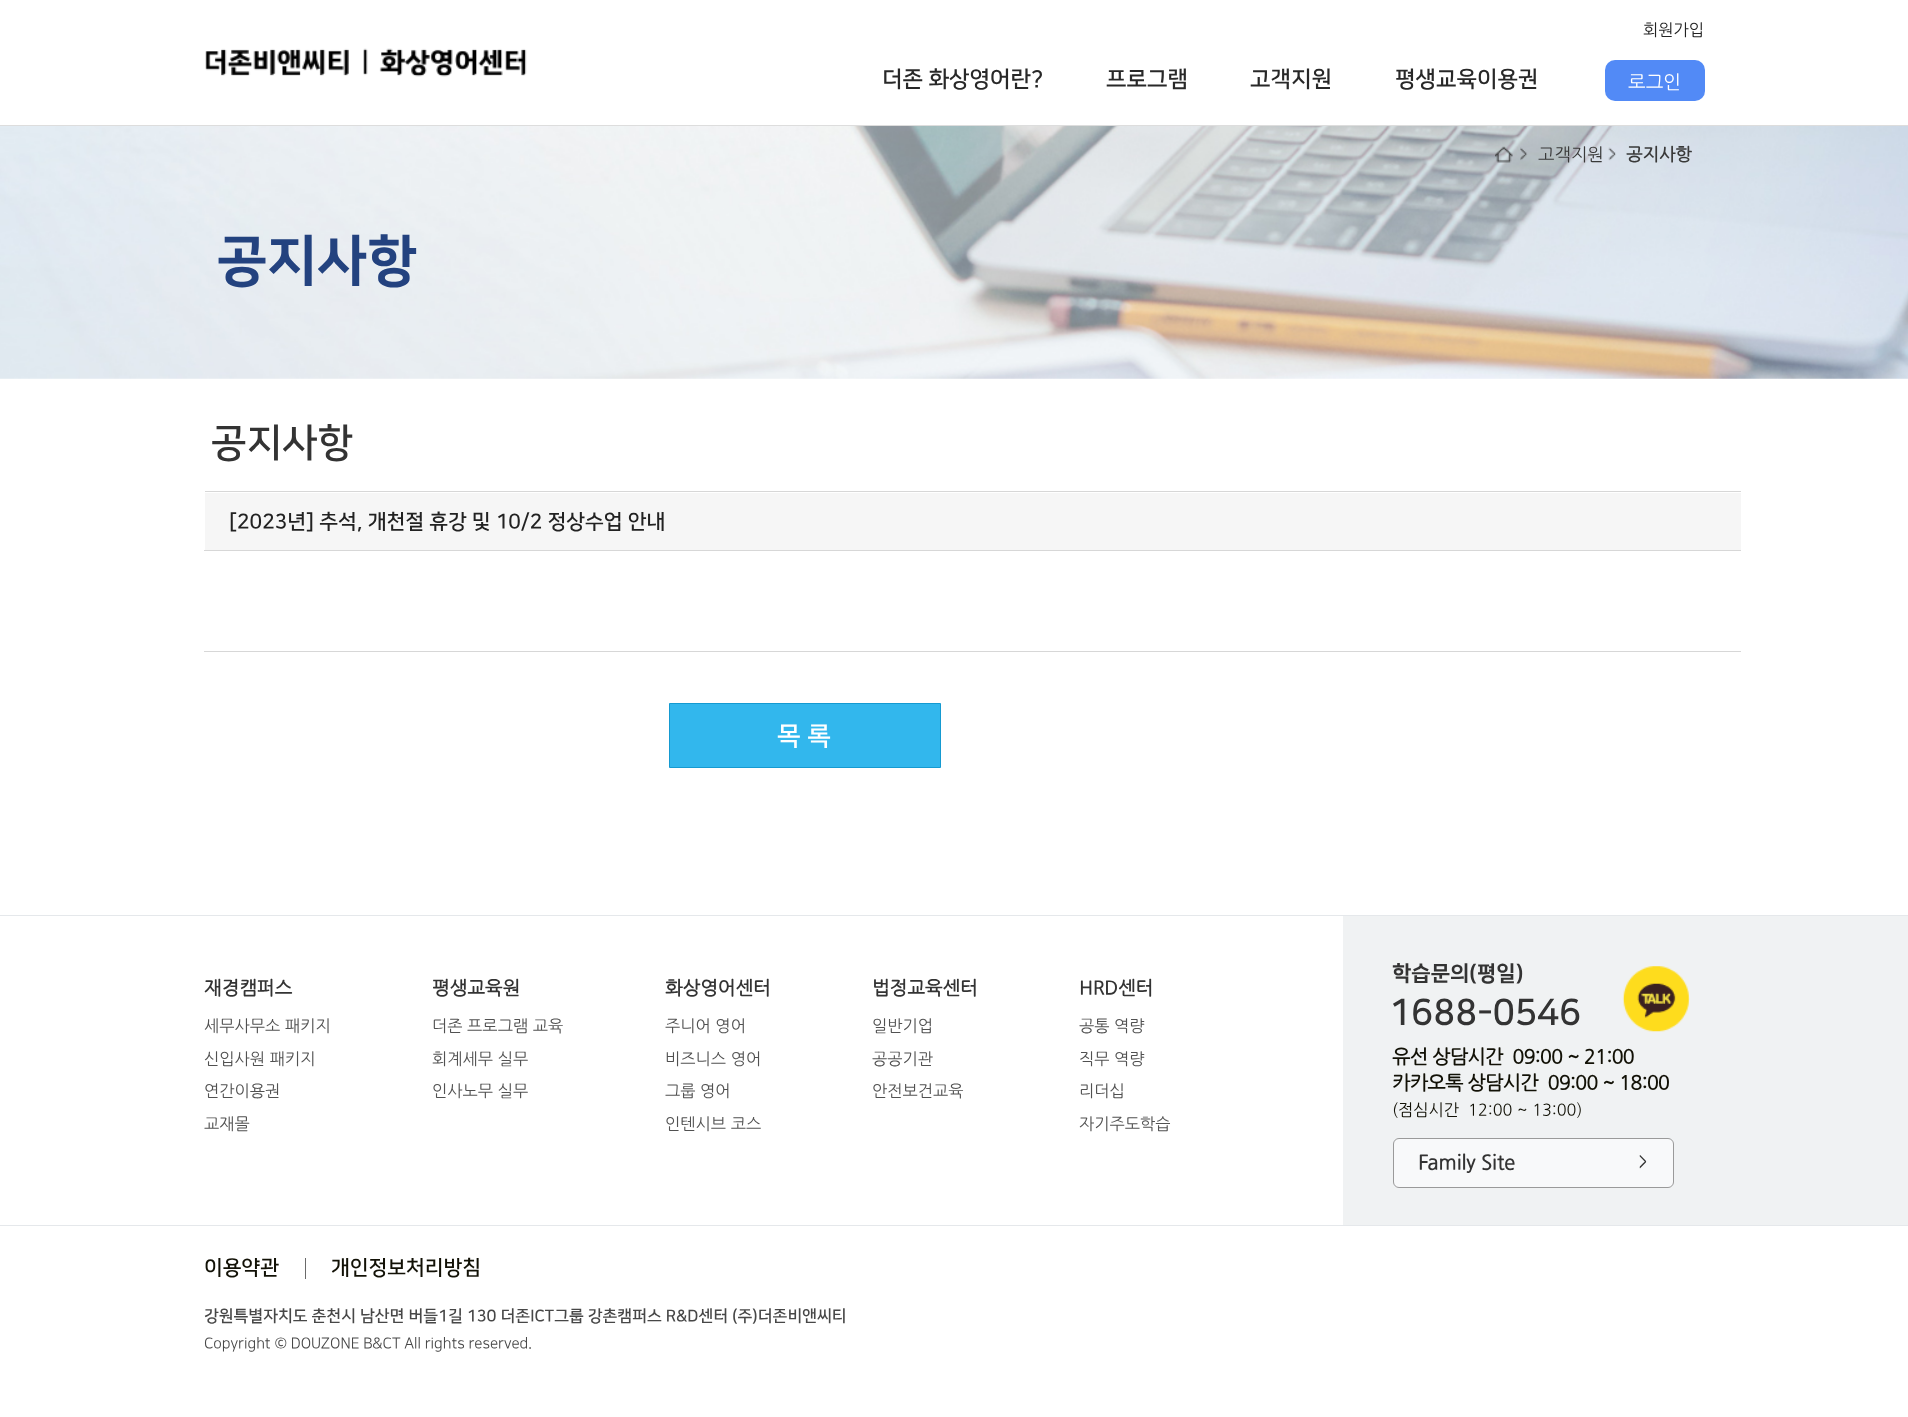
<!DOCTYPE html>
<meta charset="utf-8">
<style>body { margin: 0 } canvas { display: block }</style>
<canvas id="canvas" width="1908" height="1417"></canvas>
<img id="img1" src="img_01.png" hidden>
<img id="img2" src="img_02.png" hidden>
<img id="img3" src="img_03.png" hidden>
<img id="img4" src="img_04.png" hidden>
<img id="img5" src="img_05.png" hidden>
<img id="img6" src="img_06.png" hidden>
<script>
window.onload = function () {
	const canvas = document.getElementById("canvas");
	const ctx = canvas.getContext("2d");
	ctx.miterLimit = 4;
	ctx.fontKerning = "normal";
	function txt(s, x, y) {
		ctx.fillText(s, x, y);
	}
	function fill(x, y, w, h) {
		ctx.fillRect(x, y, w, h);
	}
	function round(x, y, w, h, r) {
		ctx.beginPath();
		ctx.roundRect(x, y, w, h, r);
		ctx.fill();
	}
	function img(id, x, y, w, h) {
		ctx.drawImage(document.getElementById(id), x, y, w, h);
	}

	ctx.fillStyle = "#FFFFFF";
	fill(0, 0, 1908, 1417);
	img("img1", 205, 48, 322, 29);
	ctx.fillStyle = "#528AF6";
	round(1605, 60, 100, 41, 10);
	ctx.fillStyle = "#DDDDDD";
	fill(0, 125, 1908, 1);
	img("img2", 0, 126, 1908, 253);
	img("img3", 1520, 147, 8, 14);
	img("img4", 1495, 146, 18, 17);
	img("img5", 1608, 147, 8, 14);
	ctx.fillStyle = "#D7D7D7";
	fill(205, 491, 1536, 1);
	ctx.fillStyle = "#F6F6F6";
	fill(205, 493, 1536, 57);
	ctx.fillStyle = "#D7D7D7";
	fill(204, 550, 1537, 1);
	fill(204, 651, 1537, 1);
	ctx.fillStyle = "#32B7ED";
	ctx.beginPath();
	ctx.rect(669.5, 703.5, 271, 64);
	ctx.fill();
	ctx.strokeStyle = "#159AD1";
	ctx.stroke();
	ctx.fillStyle = "#F0F2F3";
	fill(1343, 916, 565, 309);
	ctx.fillStyle = "#E5E8EB";
	fill(0, 915, 1908, 1);
	img("img6", 1622, 966, 68, 66);
	ctx.fillStyle = "#F8F9FA";
	ctx.beginPath();
	ctx.roundRect(1393.5, 1138.5, 280, 49, 5.5);
	ctx.fill();
	ctx.strokeStyle = "#9A9A9A";
	ctx.stroke();
	ctx.fillStyle = "#E5E8EB";
	fill(0, 1225, 1908, 1);
	ctx.fillStyle = "#6A6A6A";
	fill(305, 1258, 1, 21);
	ctx.font = "16.25px NanumGothic";
	ctx.fillStyle = "#222222";
	txt("회원가입", 1643, 35);
	ctx.font = "bold 22.5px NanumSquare";
	ctx.fillStyle = "#282828";
	txt("더존 화상영어란?", 882, 86);
	txt("프로그램", 1106, 86);
	txt("고객지원", 1250, 86);
	txt("평생교육이용권", 1395, 86);
	ctx.font = "18.75px NanumGothic";
	ctx.fillStyle = "#FFFFFF";
	txt("로그인", 1628, 88);
	ctx.font = "17.5px NanumGothic";
	ctx.fillStyle = "#393939";
	txt("고객지원", 1538, 160);
	ctx.font = "bold 17.5px NanumGothic";
	txt("공지사항", 1626, 160);
	ctx.font = "800 55px NanumSquare";
	ctx.fillStyle = "#23427F";
	txt("공지사항", 217, 278);
	ctx.font = "bold 39px NanumSquare";
	ctx.fillStyle = "#333333";
	txt("공지사항", 211, 455);
	ctx.font = "bold 20.6px NanumSquare";
	ctx.fillStyle = "#222222";
	txt("[2023년] 추석, 개천절 휴강 및 10/2 정상수업 안내", 229, 528);
	ctx.font = "bold 26px NanumSquare";
	ctx.fillStyle = "#FFFFFF";
	txt("목 록", 777, 744);
	ctx.font = "bold 18.75px NanumGothic";
	ctx.fillStyle = "#333333";
	txt("재경캠퍼스", 204, 994);
	ctx.font = "16.25px NanumGothic";
	ctx.fillStyle = "#515151";
	txt("세무사무소 패키지", 204, 1031);
	txt("신입사원 패키지", 204, 1064);
	txt("연간이용권", 204, 1096);
	txt("교재몰", 204, 1129);
	ctx.font = "bold 18.75px NanumGothic";
	ctx.fillStyle = "#333333";
	txt("평생교육원", 432, 994);
	ctx.font = "16.25px NanumGothic";
	ctx.fillStyle = "#515151";
	txt("더존 프로그램 교육", 432, 1031);
	txt("회계세무 실무", 432, 1064);
	txt("인사노무 실무", 432, 1096);
	ctx.font = "bold 18.75px NanumGothic";
	ctx.fillStyle = "#333333";
	txt("화상영어센터", 665, 994);
	ctx.font = "16.25px NanumGothic";
	ctx.fillStyle = "#515151";
	txt("주니어 영어", 665, 1031);
	txt("비즈니스 영어", 665, 1064);
	txt("그룹 영어", 665, 1096);
	txt("인텐시브 코스", 665, 1129);
	ctx.font = "bold 18.75px NanumGothic";
	ctx.fillStyle = "#333333";
	txt("법정교육센터", 872, 994);
	ctx.font = "16.25px NanumGothic";
	ctx.fillStyle = "#515151";
	txt("일반기업", 872, 1031);
	txt("공공기관", 872, 1064);
	txt("안전보건교육", 872, 1096);
	ctx.font = "bold 18.75px NanumGothic";
	ctx.fillStyle = "#333333";
	txt("HRD센터", 1079, 994);
	ctx.font = "16.25px NanumGothic";
	ctx.fillStyle = "#515151";
	txt("공통 역량", 1079, 1031);
	txt("직무 역량", 1079, 1064);
	txt("리더십", 1079, 1096);
	txt("자기주도학습", 1079, 1129);
	ctx.font = "800 21.25px NanumSquare";
	ctx.fillStyle = "#333333";
	txt("학습문의(평일)", 1392, 980);
	ctx.font = "bold 36.25px NanumSquare";
	txt("1688-0546", 1389, 1024);
	ctx.letterSpacing = "-0.6px";
	ctx.font = "bold 19.4px NanumGothic";
	ctx.fillStyle = "#121106";
	txt("유선 상담시간  09:00 ~ 21:00", 1392, 1063);
	txt("카카오톡 상담시간  09:00 ~ 18:00", 1392, 1089);
	ctx.letterSpacing = "0px";
	ctx.font = "16.25px NanumGothic";
	txt("(점심시간  12:00 ~ 13:00)", 1392, 1115);
	ctx.font = "bold 20px NanumGothic";
	ctx.fillStyle = "#333333";
	txt("Family Site", 1418, 1169);
	ctx.font = "bold 14px NanumGothic";
	txt(">", 1639, 1166);
	ctx.font = "bold 20.6px NanumSquare";
	ctx.fillStyle = "#121106";
	txt("이용약관", 204, 1274);
	txt("개인정보처리방침", 331, 1274);
	ctx.font = "bold 16.25px NanumSquare";
	ctx.fillStyle = "#474747";
	txt("강원특별자치도 춘천시 남산면 버들1길 130 더존ICT그룹 강촌캠퍼스 R&D센터 (주)더존비앤씨티", 204, 1321);
	ctx.font = "15px NanumSquare";
	txt("Copyright © DOUZONE B&CT All rights reserved.", 204, 1348);
};
</script>
